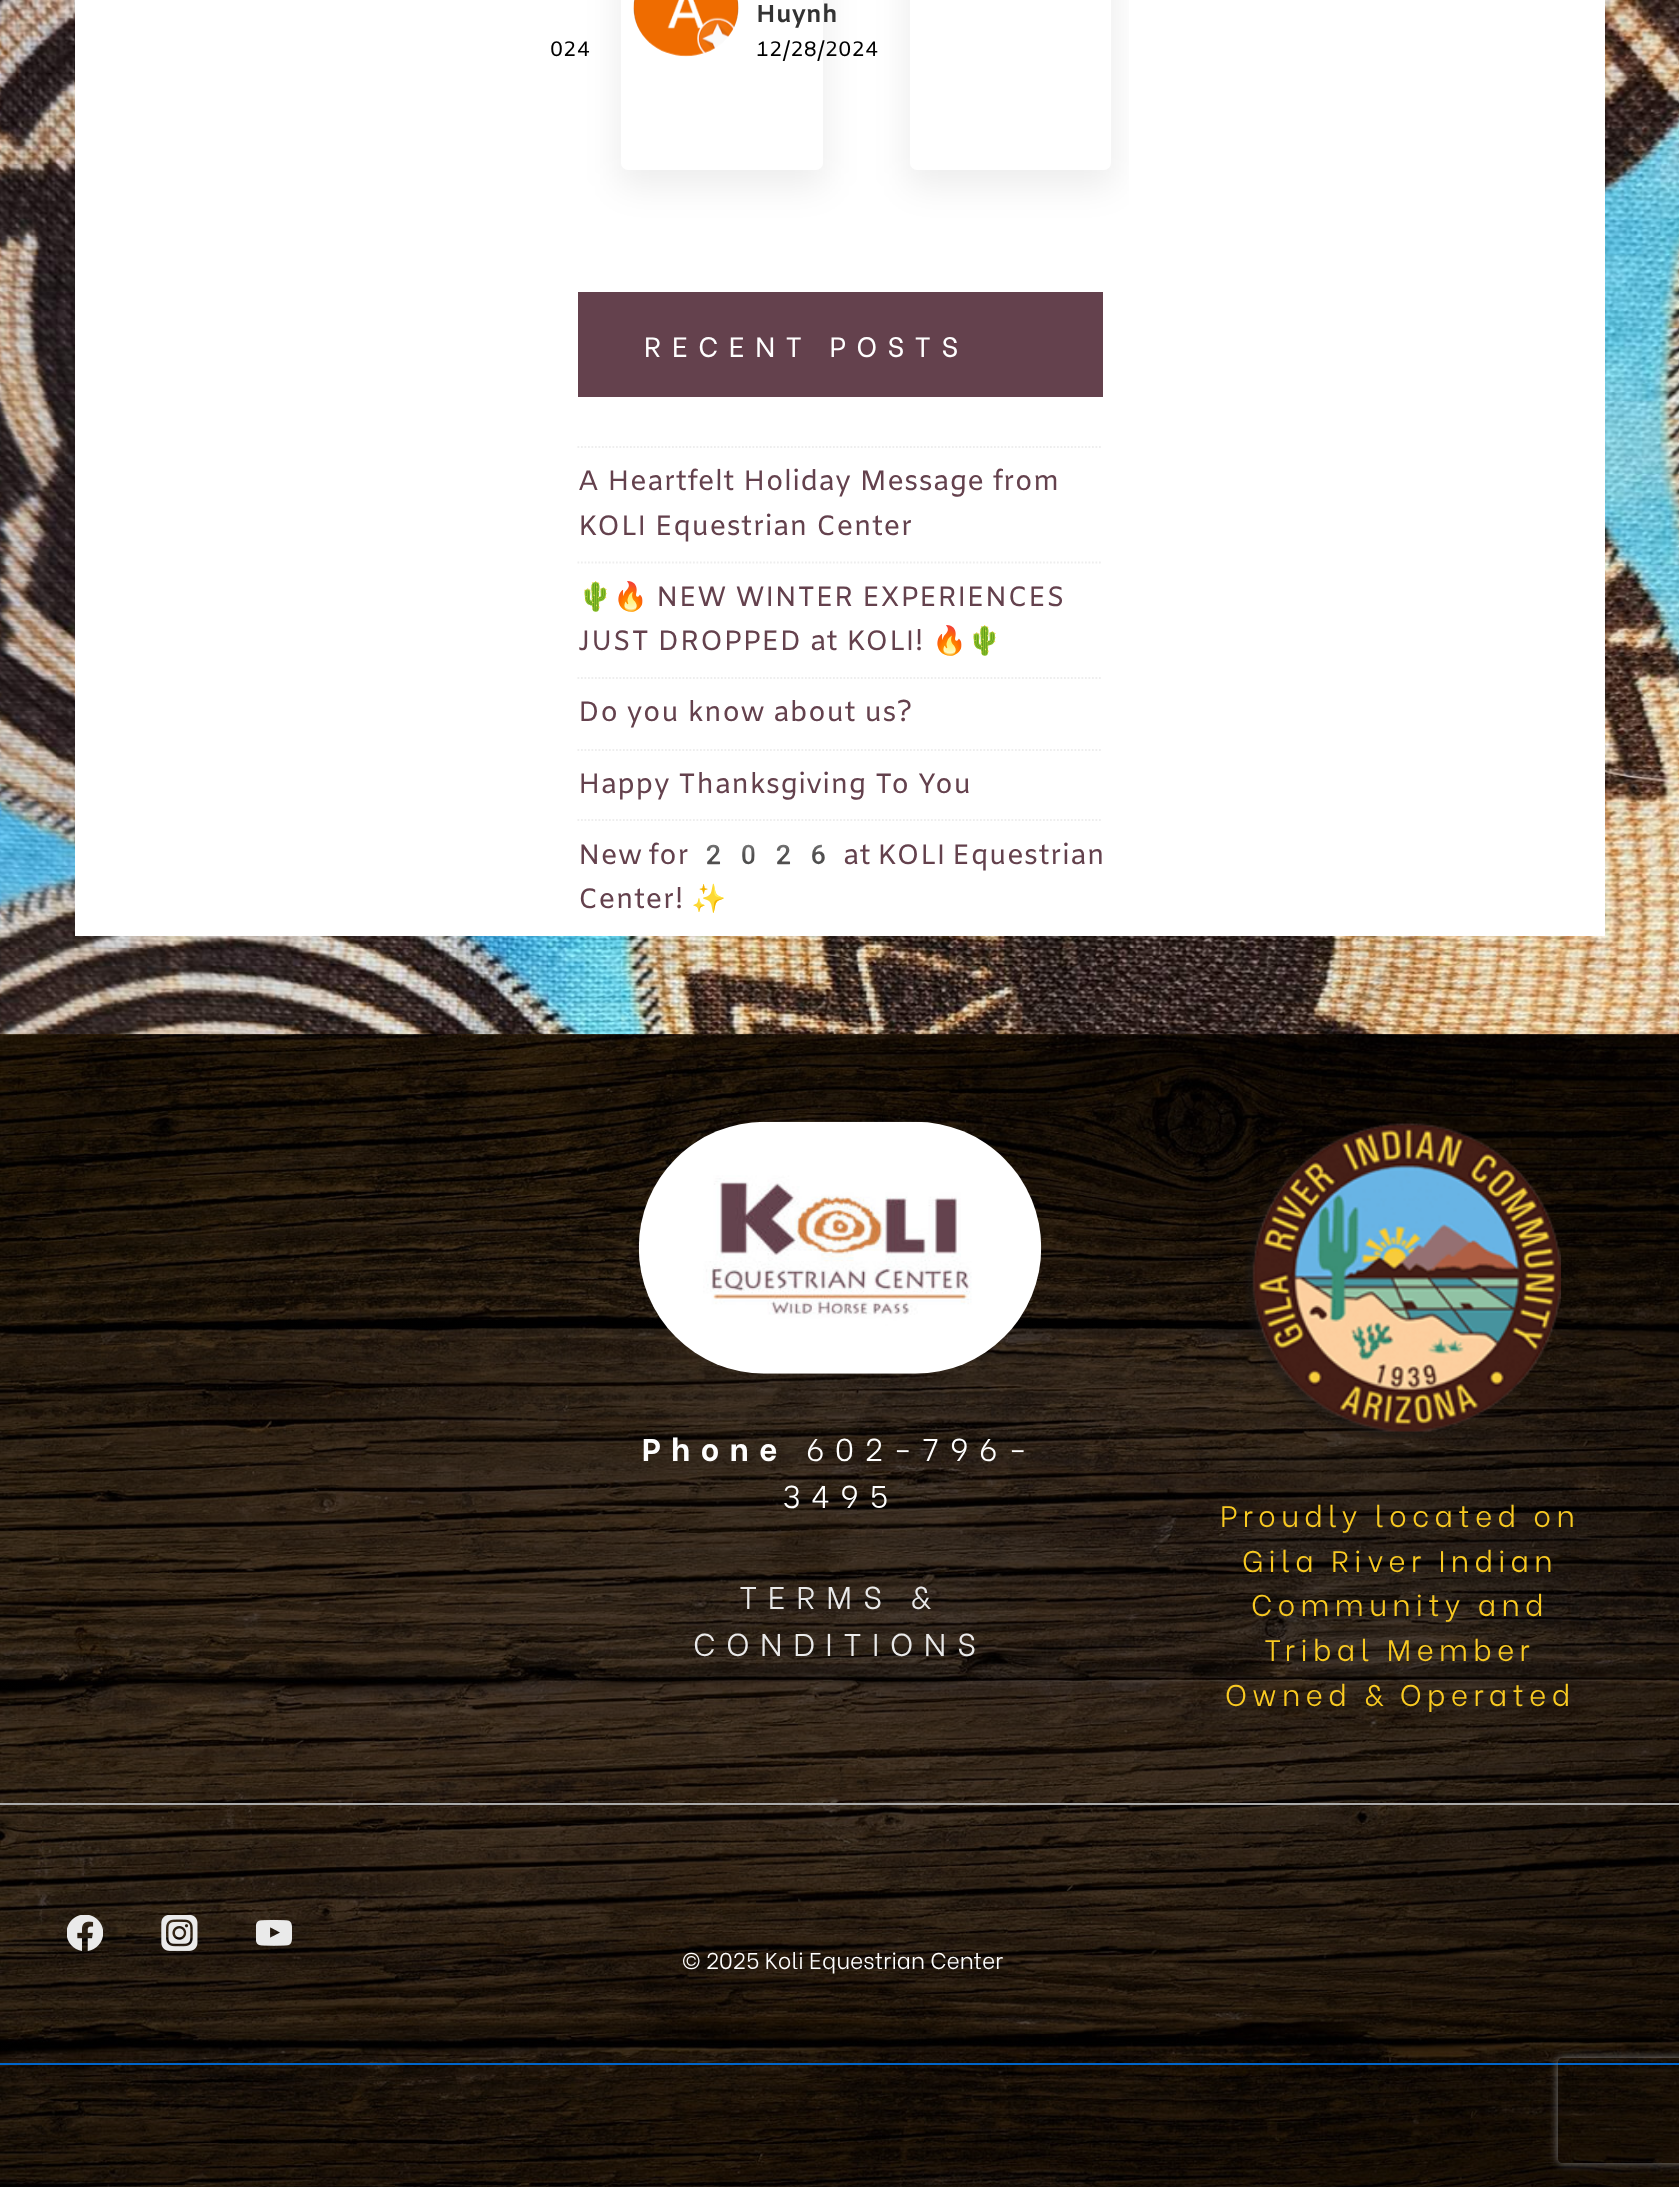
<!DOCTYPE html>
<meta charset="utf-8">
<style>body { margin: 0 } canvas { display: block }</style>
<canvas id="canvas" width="1679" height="2187"></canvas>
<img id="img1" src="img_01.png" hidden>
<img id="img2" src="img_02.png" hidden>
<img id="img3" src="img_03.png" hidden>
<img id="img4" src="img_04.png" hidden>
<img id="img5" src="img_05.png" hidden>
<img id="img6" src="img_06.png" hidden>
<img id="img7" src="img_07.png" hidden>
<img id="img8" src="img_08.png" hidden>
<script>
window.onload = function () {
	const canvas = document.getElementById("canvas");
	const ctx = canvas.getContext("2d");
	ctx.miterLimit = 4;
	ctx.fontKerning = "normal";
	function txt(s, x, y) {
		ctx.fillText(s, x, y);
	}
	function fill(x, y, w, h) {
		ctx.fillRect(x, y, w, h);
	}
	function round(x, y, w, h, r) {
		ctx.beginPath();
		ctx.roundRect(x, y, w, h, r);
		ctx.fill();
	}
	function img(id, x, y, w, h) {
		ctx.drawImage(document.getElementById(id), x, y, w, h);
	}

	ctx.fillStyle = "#FFFFFF";
	fill(0, 0, 1679, 2187);
	img("img1", 0, 0, 1679, 1035);
	fill(75, 0, 1530, 936);
	ctx.fillStyle = "rgba(0, 0, 0, 0.07)";
	ctx.filter = "blur(17.5px)";
	ctx.beginPath();
	ctx.roundRect(618, -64, 208, 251, 11);
	ctx.fill();
	ctx.filter = "none";
	ctx.fillStyle = "#FFFFFF";
	round(621, -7, 202, 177, 7);
	img("img2", 633, 0, 106, 57);
	ctx.save();
	ctx.beginPath();
	ctx.rect(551, 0, 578, 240);
	ctx.clip();
	ctx.fillStyle = "rgba(0, 0, 0, 0.07)";
	ctx.filter = "blur(17.5px)";
	ctx.beginPath();
	ctx.roundRect(907, -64, 208, 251, 11);
	ctx.fill();
	ctx.filter = "none";
	ctx.restore();
	round(910, -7, 201, 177, 7);
	ctx.fillStyle = "#64414D";
	fill(578, 292, 525, 105);
	ctx.beginPath();
	ctx.moveTo(577.5, 447);
	ctx.lineTo(1102.5, 447);
	ctx.strokeStyle = "#EEEEEE";
	ctx.lineWidth = 1.8;
	ctx.setLineDash([1.75, 1.75]);
	ctx.stroke();
	ctx.beginPath();
	ctx.moveTo(577.5, 562.5);
	ctx.lineTo(1102.5, 562.5);
	ctx.stroke();
	ctx.beginPath();
	ctx.moveTo(577.5, 678);
	ctx.lineTo(1102.5, 678);
	ctx.stroke();
	ctx.beginPath();
	ctx.moveTo(577.5, 750);
	ctx.lineTo(1102.5, 750);
	ctx.stroke();
	ctx.beginPath();
	ctx.moveTo(577.5, 820);
	ctx.lineTo(1102.5, 820);
	ctx.stroke();
	img("img3", 0, 1034, 1679, 1153);
	img("img4", 638, 1121, 404, 253);
	img("img5", 1245, 1123, 316, 316);
	ctx.fillStyle = "#AAAAAA";
	fill(0, 1803, 1679, 2);
	img("img6", 67, 1915, 36, 36);
	img("img7", 161, 1915, 37, 36);
	img("img8", 256, 1919, 36, 27);
	ctx.fillStyle = "#0066CC";
	fill(0, 2063, 1679, 2);
	ctx.save();
	ctx.beginPath();
	ctx.moveTo(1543, 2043);
	ctx.lineTo(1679, 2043);
	ctx.lineTo(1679, 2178);
	ctx.lineTo(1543, 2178);
	ctx.closePath();
	ctx.moveTo(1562, 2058);
	ctx.lineTo(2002, 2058);
	ctx.bezierCurveTo(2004, 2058, 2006, 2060, 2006, 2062);
	ctx.lineTo(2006, 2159);
	ctx.bezierCurveTo(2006, 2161, 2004, 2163, 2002, 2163);
	ctx.lineTo(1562, 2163);
	ctx.bezierCurveTo(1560, 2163, 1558, 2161, 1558, 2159);
	ctx.lineTo(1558, 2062);
	ctx.bezierCurveTo(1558, 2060, 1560, 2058, 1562, 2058);
	ctx.closePath();
	ctx.clip("evenodd");
	ctx.fillStyle = "#808080";
	ctx.filter = "blur(4.5px)";
	ctx.beginPath();
	ctx.roundRect(1558, 2058, 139, 105, 4);
	ctx.fill();
	ctx.filter = "none";
	ctx.restore();
	ctx.save();
	ctx.beginPath();
	ctx.rect(551, 0, 578, 240);
	ctx.clip();
	ctx.letterSpacing = "0.35px";
	ctx.font = "21px Amiko";
	ctx.fillStyle = "#000000";
	txt("024", 550, 56);
	ctx.restore();
	ctx.letterSpacing = "0.35px";
	ctx.font = "bold 24.5px Amiko";
	ctx.fillStyle = "#333333";
	txt("Huynh", 756, 22);
	ctx.font = "21px Amiko";
	ctx.fillStyle = "#000000";
	txt("12/28/2024", 756, 56);
	ctx.letterSpacing = "10.5px";
	ctx.font = "28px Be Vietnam";
	ctx.fillStyle = "#FFFFFF";
	txt("RECENT POSTS", 644, 357);
	ctx.letterSpacing = "0.35px";
	ctx.font = "28px Amiko";
	ctx.fillStyle = "#64414D";
	txt("A Heartfelt Holiday Message from", 578, 490);
	txt("KOLI Equestrian Center", 578, 535);
	ctx.font = "28px Noto Color Emoji";
	txt("🌵🔥", 578, 606);
	ctx.font = "28px Amiko";
	txt("NEW WINTER EXPERIENCES", 656, 606);
	txt("JUST DROPPED at KOLI!", 578, 650);
	ctx.font = "28px Noto Color Emoji";
	txt("🔥🌵", 932, 650);
	ctx.font = "28px Amiko";
	txt("Do you know about us?", 578, 721);
	txt("Happy Thanksgiving To You", 578, 793);
	ctx.wordSpacing = "-2px";
	txt("New for", 578, 864);
	ctx.wordSpacing = "0px";
	ctx.font = "28px Noto Color Emoji";
	txt("2026", 696, 864);
	ctx.wordSpacing = "-2px";
	ctx.font = "28px Amiko";
	txt("at KOLI Equestrian", 843, 864);
	ctx.wordSpacing = "0px";
	txt("Center!", 578, 908);
	ctx.font = "28px Noto Color Emoji";
	txt("✨", 691, 908);
	ctx.letterSpacing = "10.5px";
	ctx.font = "bold 31.5px Be Vietnam";
	ctx.fillStyle = "#FFFFFF";
	txt("Phone", 642, 1461);
	ctx.font = "300 31.5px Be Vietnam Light";
	txt("602-796-", 806, 1461);
	txt("3495", 782, 1508);
	ctx.fillStyle = "#EAEAEA";
	txt("TERMS &", 739, 1609);
	txt("CONDITIONS", 693, 1656);
	ctx.letterSpacing = "5.25px";
	ctx.font = "300 29.75px Be Vietnam Light";
	ctx.fillStyle = "#F9CA22";
	txt("Proudly located on", 1220, 1527);
	txt("Gila River Indian", 1242, 1572);
	txt("Community and", 1251, 1616);
	txt("Tribal Member", 1264, 1661);
	txt("Owned & Operated", 1225, 1706);
	ctx.letterSpacing = "0px";
	ctx.font = "300 22.75px Be Vietnam Light";
	ctx.fillStyle = "#FFFFFF";
	txt("© 2025 Koli Equestrian Center", 682, 1969);
};
</script>
